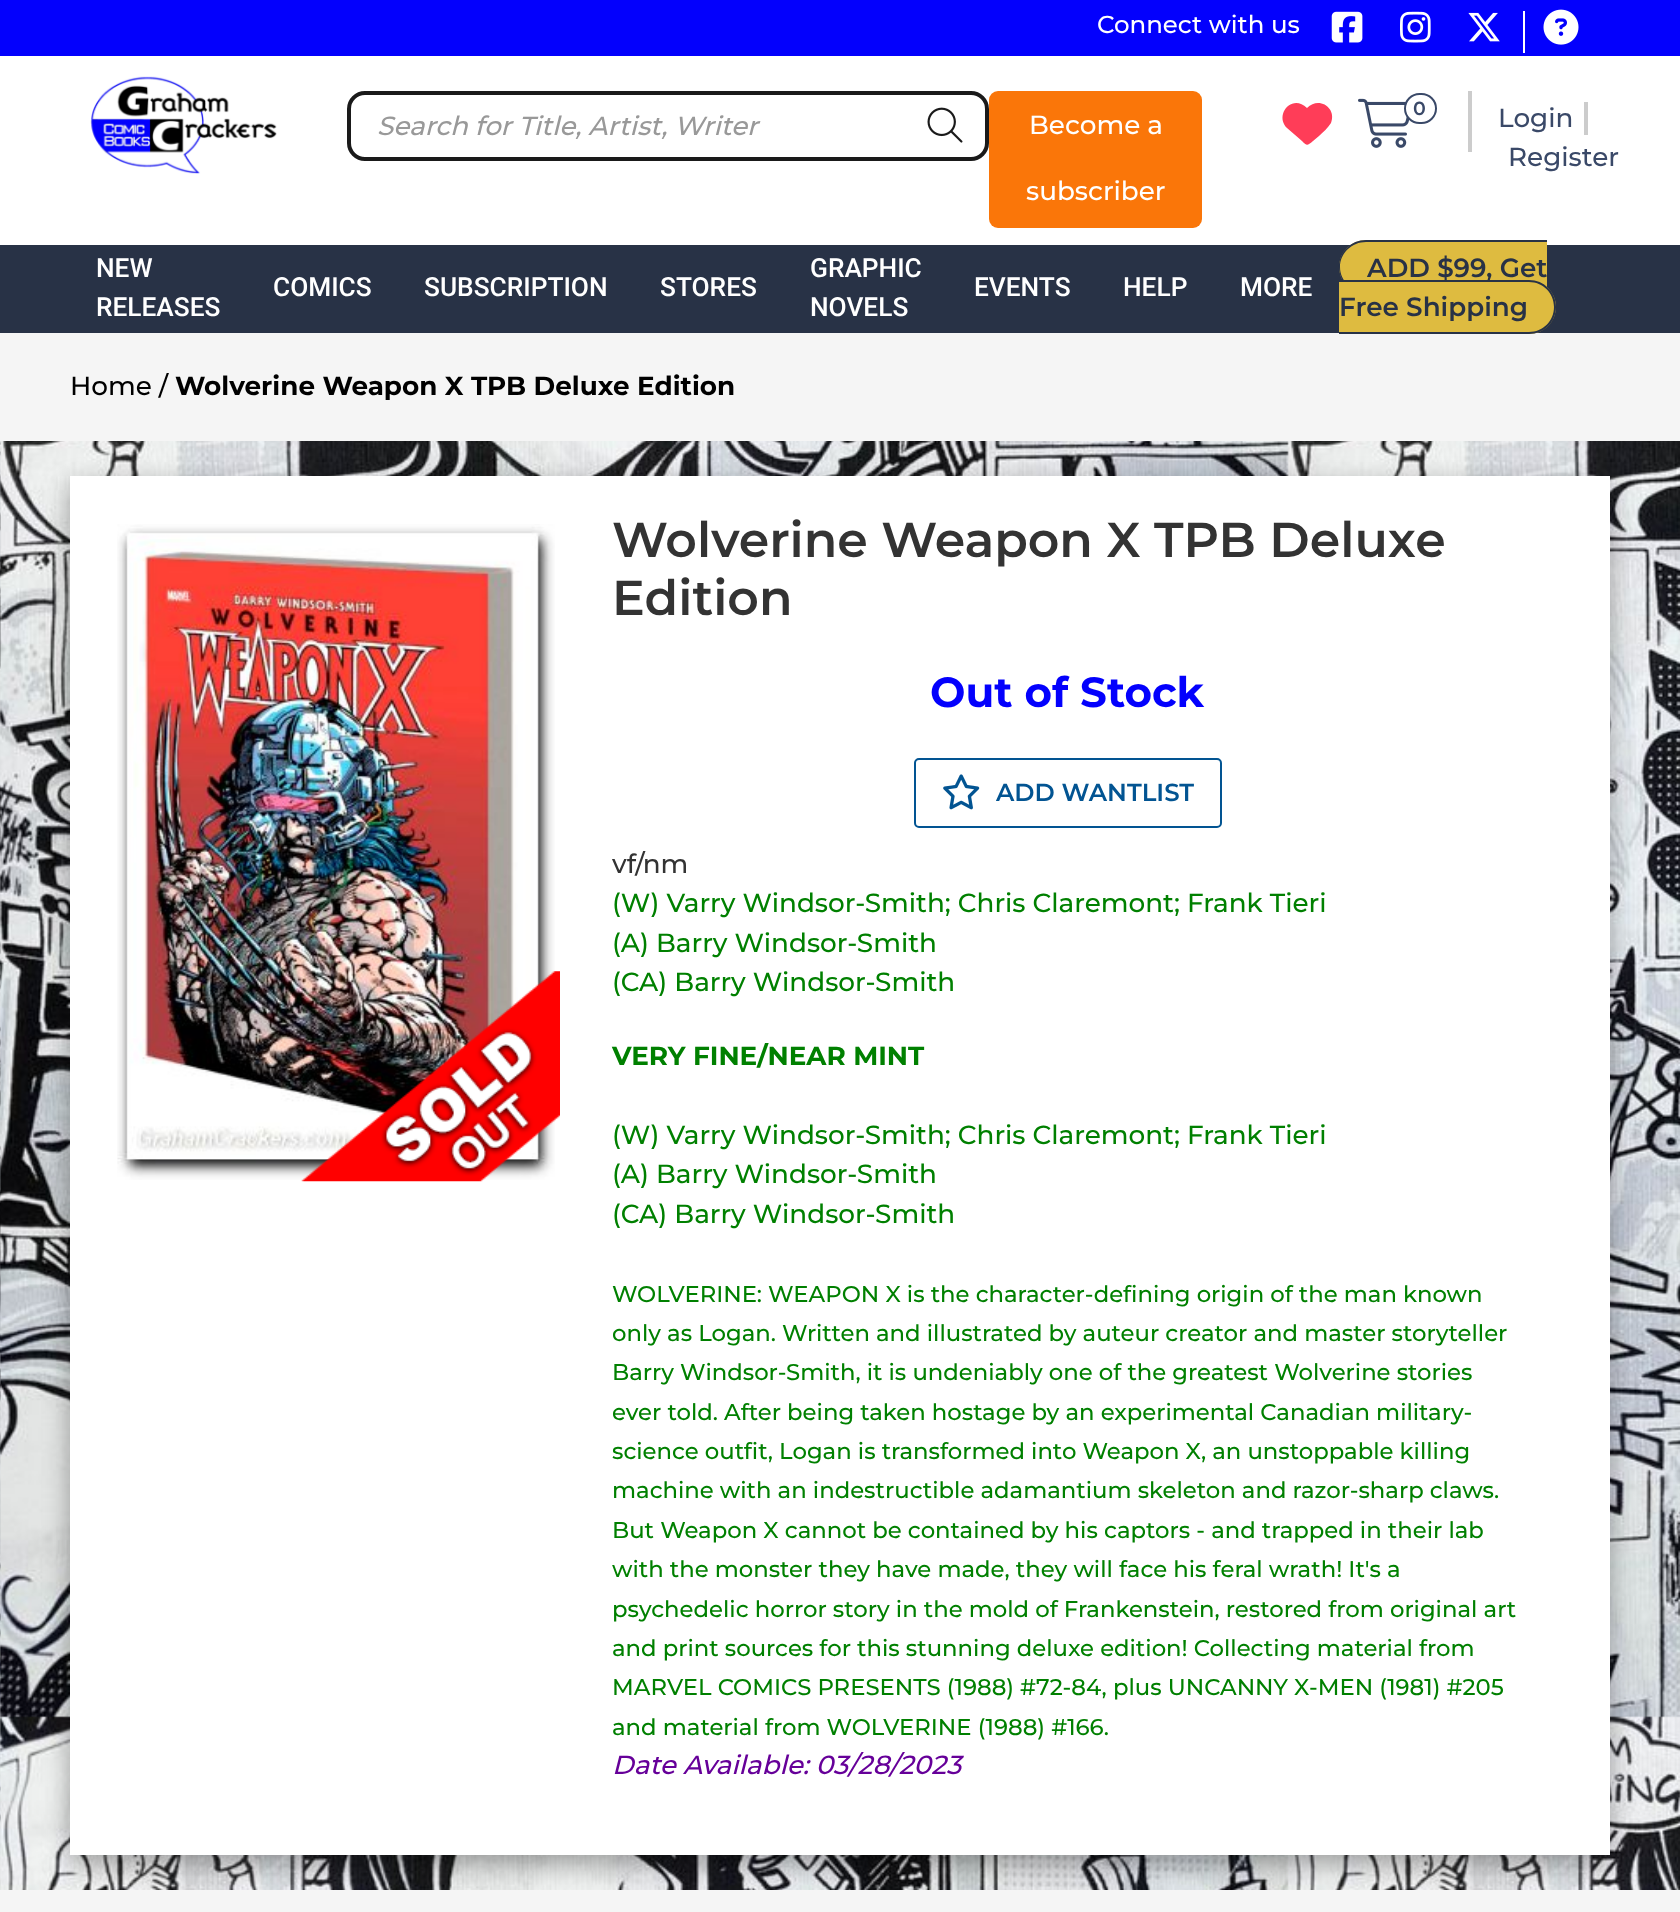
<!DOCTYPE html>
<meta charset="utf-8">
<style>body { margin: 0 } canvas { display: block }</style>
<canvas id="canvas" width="1680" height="1912"></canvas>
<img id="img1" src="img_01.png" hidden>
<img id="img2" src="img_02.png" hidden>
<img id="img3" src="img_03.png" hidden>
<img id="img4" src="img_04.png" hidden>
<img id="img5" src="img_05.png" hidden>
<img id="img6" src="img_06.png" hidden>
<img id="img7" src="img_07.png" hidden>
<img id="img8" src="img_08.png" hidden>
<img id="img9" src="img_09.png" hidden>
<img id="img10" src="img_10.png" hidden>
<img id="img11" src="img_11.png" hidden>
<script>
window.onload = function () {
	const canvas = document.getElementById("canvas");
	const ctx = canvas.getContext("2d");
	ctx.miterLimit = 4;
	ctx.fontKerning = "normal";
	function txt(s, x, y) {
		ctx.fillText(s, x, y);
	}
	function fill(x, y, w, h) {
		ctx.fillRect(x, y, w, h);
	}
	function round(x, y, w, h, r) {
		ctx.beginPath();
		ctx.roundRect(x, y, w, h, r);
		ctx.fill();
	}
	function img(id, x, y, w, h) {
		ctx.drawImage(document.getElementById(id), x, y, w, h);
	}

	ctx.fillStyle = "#FFFFFF";
	fill(0, 0, 1680, 1912);
	img("img1", 0, 441, 1680, 1449);
	ctx.fillStyle = "#0300FD";
	fill(0, 0, 1680, 56);
	img("img2", 1331, 11, 32, 32);
	img("img3", 1400, 11, 31, 32);
	img("img4", 1468, 12, 32, 30);
	ctx.fillStyle = "#FFFFFF";
	fill(1523, 11, 2, 42);
	img("img5", 1543, 9, 36, 36);
	img("img6", 90, 76, 187, 98);
	ctx.beginPath();
	ctx.roundRect(349, 93, 638, 66, 16);
	ctx.strokeStyle = "#1A1A1A";
	ctx.lineWidth = 4;
	ctx.stroke();
	img("img7", 927, 107, 36, 36);
	ctx.fillStyle = "#FA7609";
	round(989, 91, 213, 137, 9);
	ctx.fillStyle = "#CCCCCC";
	fill(1468, 91, 4, 61);
	ctx.fillStyle = "#FF3D58";
	ctx.beginPath();
	ctx.moveTo(1287, 128);
	ctx.lineTo(1305, 144);
	ctx.lineTo(1287, 128);
	ctx.lineTo(1302, 141);
	ctx.bezierCurveTo(1307, 146, 1307, 146, 1313, 141);
	ctx.lineTo(1319, 136);
	ctx.bezierCurveTo(1323, 132, 1328, 128, 1331, 123);
	ctx.bezierCurveTo(1337, 108, 1319, 96, 1307, 108);
	ctx.bezierCurveTo(1292, 93, 1274, 115, 1287, 128);
	ctx.closePath();
	ctx.fill();
	img("img8", 1358, 98, 52, 50);
	ctx.fillStyle = "#FFFFFF";
	ctx.beginPath();
	ctx.roundRect(1405, 94, 31, 29, 14.5);
	ctx.fill();
	ctx.strokeStyle = "#3A4968";
	ctx.lineWidth = 2;
	ctx.stroke();
	ctx.fillStyle = "#CCCCCC";
	fill(1584, 102, 4, 33);
	ctx.fillStyle = "#283246";
	fill(0, 245, 1680, 88);
	ctx.fillStyle = "#DEBB40";
	ctx.beginPath();
	ctx.roundRect(1339, 240, 208, 54, [27, 0, 0, 27]);
	ctx.fill();
	ctx.fillStyle = "#283246";
	ctx.beginPath();
	ctx.moveTo(1366, 240);
	ctx.lineTo(1547, 240);
	ctx.lineTo(1547, 294);
	ctx.lineTo(1366, 294);
	ctx.bezierCurveTo(1351, 294, 1339, 282, 1339, 267);
	ctx.bezierCurveTo(1339, 252, 1351, 240, 1366, 240);
	ctx.closePath();
	ctx.moveTo(1366, 242);
	ctx.lineTo(1547, 242);
	ctx.lineTo(1547, 292);
	ctx.lineTo(1366, 292);
	ctx.bezierCurveTo(1352, 292, 1340, 281, 1340, 267);
	ctx.bezierCurveTo(1340, 253, 1352, 242, 1366, 242);
	ctx.closePath();
	ctx.fill("evenodd");
	ctx.fillStyle = "#F5F5F5";
	fill(0, 333, 1680, 108);
	ctx.fillStyle = "#DEBB40";
	ctx.beginPath();
	ctx.roundRect(1339, 280, 217, 54, [0, 27, 27, 0]);
	ctx.fill();
	ctx.fillStyle = "#283246";
	ctx.beginPath();
	ctx.moveTo(1339, 280);
	ctx.lineTo(1529, 280);
	ctx.bezierCurveTo(1544, 280, 1556, 292, 1556, 307);
	ctx.bezierCurveTo(1556, 322, 1544, 334, 1529, 334);
	ctx.lineTo(1339, 334);
	ctx.closePath();
	ctx.moveTo(1339, 282);
	ctx.lineTo(1529, 282);
	ctx.bezierCurveTo(1543, 282, 1554, 293, 1554, 307);
	ctx.bezierCurveTo(1554, 321, 1543, 332, 1529, 332);
	ctx.lineTo(1339, 332);
	ctx.closePath();
	ctx.fill("evenodd");
	ctx.fillStyle = "rgba(0, 0, 0, 0.35)";
	ctx.filter = "blur(13px)";
	ctx.beginPath();
	ctx.rect(70, 485, 1540, 1379);
	ctx.fill();
	ctx.filter = "none";
	ctx.fillStyle = "#FFFFFF";
	fill(70, 476, 1540, 1379);
	img("img9", 117, 524, 438, 656);
	img("img10", 301, 971, 259, 211);
	ctx.beginPath();
	ctx.roundRect(915, 759, 306, 68, 4);
	ctx.strokeStyle = "#025492";
	ctx.stroke();
	img("img11", 943, 774, 37, 36);
	ctx.fillStyle = "#F5F5F5";
	fill(0, 1890, 1680, 22);
	ctx.font = "500 24.5px Montserrat";
	ctx.fillStyle = "#FFFFFF";
	txt("Connect with us", 1097, 33);
	ctx.font = "italic 500 26.25px Montserrat";
	ctx.fillStyle = "#999999";
	txt("Search for Title, Artist, Writer", 377, 135);
	ctx.font = "500 26.25px Montserrat";
	ctx.fillStyle = "#FFFFFF";
	txt("Become a", 1029, 134);
	txt("subscriber", 1026, 200);
	ctx.font = "600 19px Montserrat";
	ctx.fillStyle = "#3A4968";
	txt("0", 1413, 115);
	ctx.font = "500 26.25px Montserrat";
	txt("Login", 1498, 127);
	txt("Register", 1508, 166);
	ctx.font = "500 26.25px Roboto";
	ctx.fillStyle = "#FFFFFF";
	txt("NEW", 96, 277);
	txt("RELEASES", 96, 316);
	txt("COMICS", 273, 296);
	txt("SUBSCRIPTION", 424, 296);
	txt("STORES", 660, 296);
	txt("GRAPHIC", 810, 277);
	txt("NOVELS", 810, 316);
	txt("EVENTS", 974, 296);
	txt("HELP", 1123, 296);
	txt("MORE", 1240, 296);
	ctx.font = "600 26.25px Montserrat";
	ctx.fillStyle = "#283246";
	txt("ADD $99, Get", 1367, 277);
	txt("Free Shipping", 1339, 316);
	ctx.font = "500 26.25px Montserrat";
	ctx.fillStyle = "#000000";
	txt("Home /", 70, 395);
	ctx.font = "bold 26.25px Montserrat";
	txt("Wolverine Weapon X TPB Deluxe Edition", 175, 395);
	ctx.font = "600 49px Montserrat";
	ctx.fillStyle = "#333333";
	txt("Wolverine Weapon X TPB Deluxe", 612, 557);
	txt("Edition", 612, 615);
	ctx.font = "bold 42px Montserrat";
	ctx.fillStyle = "#0300FD";
	txt("Out of Stock", 930, 707);
	ctx.font = "600 24.5px Montserrat";
	ctx.fillStyle = "#025492";
	txt("ADD WANTLIST", 996, 801);
	ctx.font = "500 26.25px Montserrat";
	ctx.fillStyle = "#333333";
	txt("vf/nm", 612, 873);
	ctx.fillStyle = "#008000";
	txt("(W) Varry Windsor-Smith; Chris Claremont; Frank Tieri", 612, 912);
	txt("(A) Barry Windsor-Smith", 612, 952);
	txt("(CA) Barry Windsor-Smith", 612, 991);
	ctx.font = "bold 26.25px Montserrat";
	txt("VERY FINE/NEAR MINT", 612, 1065);
	ctx.font = "500 26.25px Montserrat";
	txt("(W) Varry Windsor-Smith; Chris Claremont; Frank Tieri", 612, 1144);
	txt("(A) Barry Windsor-Smith", 612, 1183);
	txt("(CA) Barry Windsor-Smith", 612, 1223);
	ctx.font = "500 22.75px Montserrat";
	txt("WOLVERINE: WEAPON X is the character-defining origin of the man known", 612, 1302);
	txt("only as Logan. Written and illustrated by auteur creator and master storyteller", 612, 1341);
	txt("Barry Windsor-Smith, it is undeniably one of the greatest Wolverine stories", 612, 1380);
	txt("ever told. After being taken hostage by an experimental Canadian military-", 612, 1420);
	txt("science outfit, Logan is transformed into Weapon X, an unstoppable killing", 612, 1459);
	txt("machine with an indestructible adamantium skeleton and razor-sharp claws.", 612, 1498);
	txt("But Weapon X cannot be contained by his captors - and trapped in their lab", 612, 1538);
	txt("with the monster they have made, they will face his feral wrath! It's a", 612, 1577);
	txt("psychedelic horror story in the mold of Frankenstein, restored from original art", 612, 1617);
	txt("and print sources for this stunning deluxe edition! Collecting material from", 612, 1656);
	txt("MARVEL COMICS PRESENTS (1988) #72-84, plus UNCANNY X-MEN (1981) #205", 612, 1695);
	txt("and material from WOLVERINE (1988) #166.", 612, 1735);
	ctx.font = "italic 500 26.25px Montserrat";
	ctx.fillStyle = "#660099";
	txt("Date Available: 03/28/2023", 612, 1774);
};
</script>
